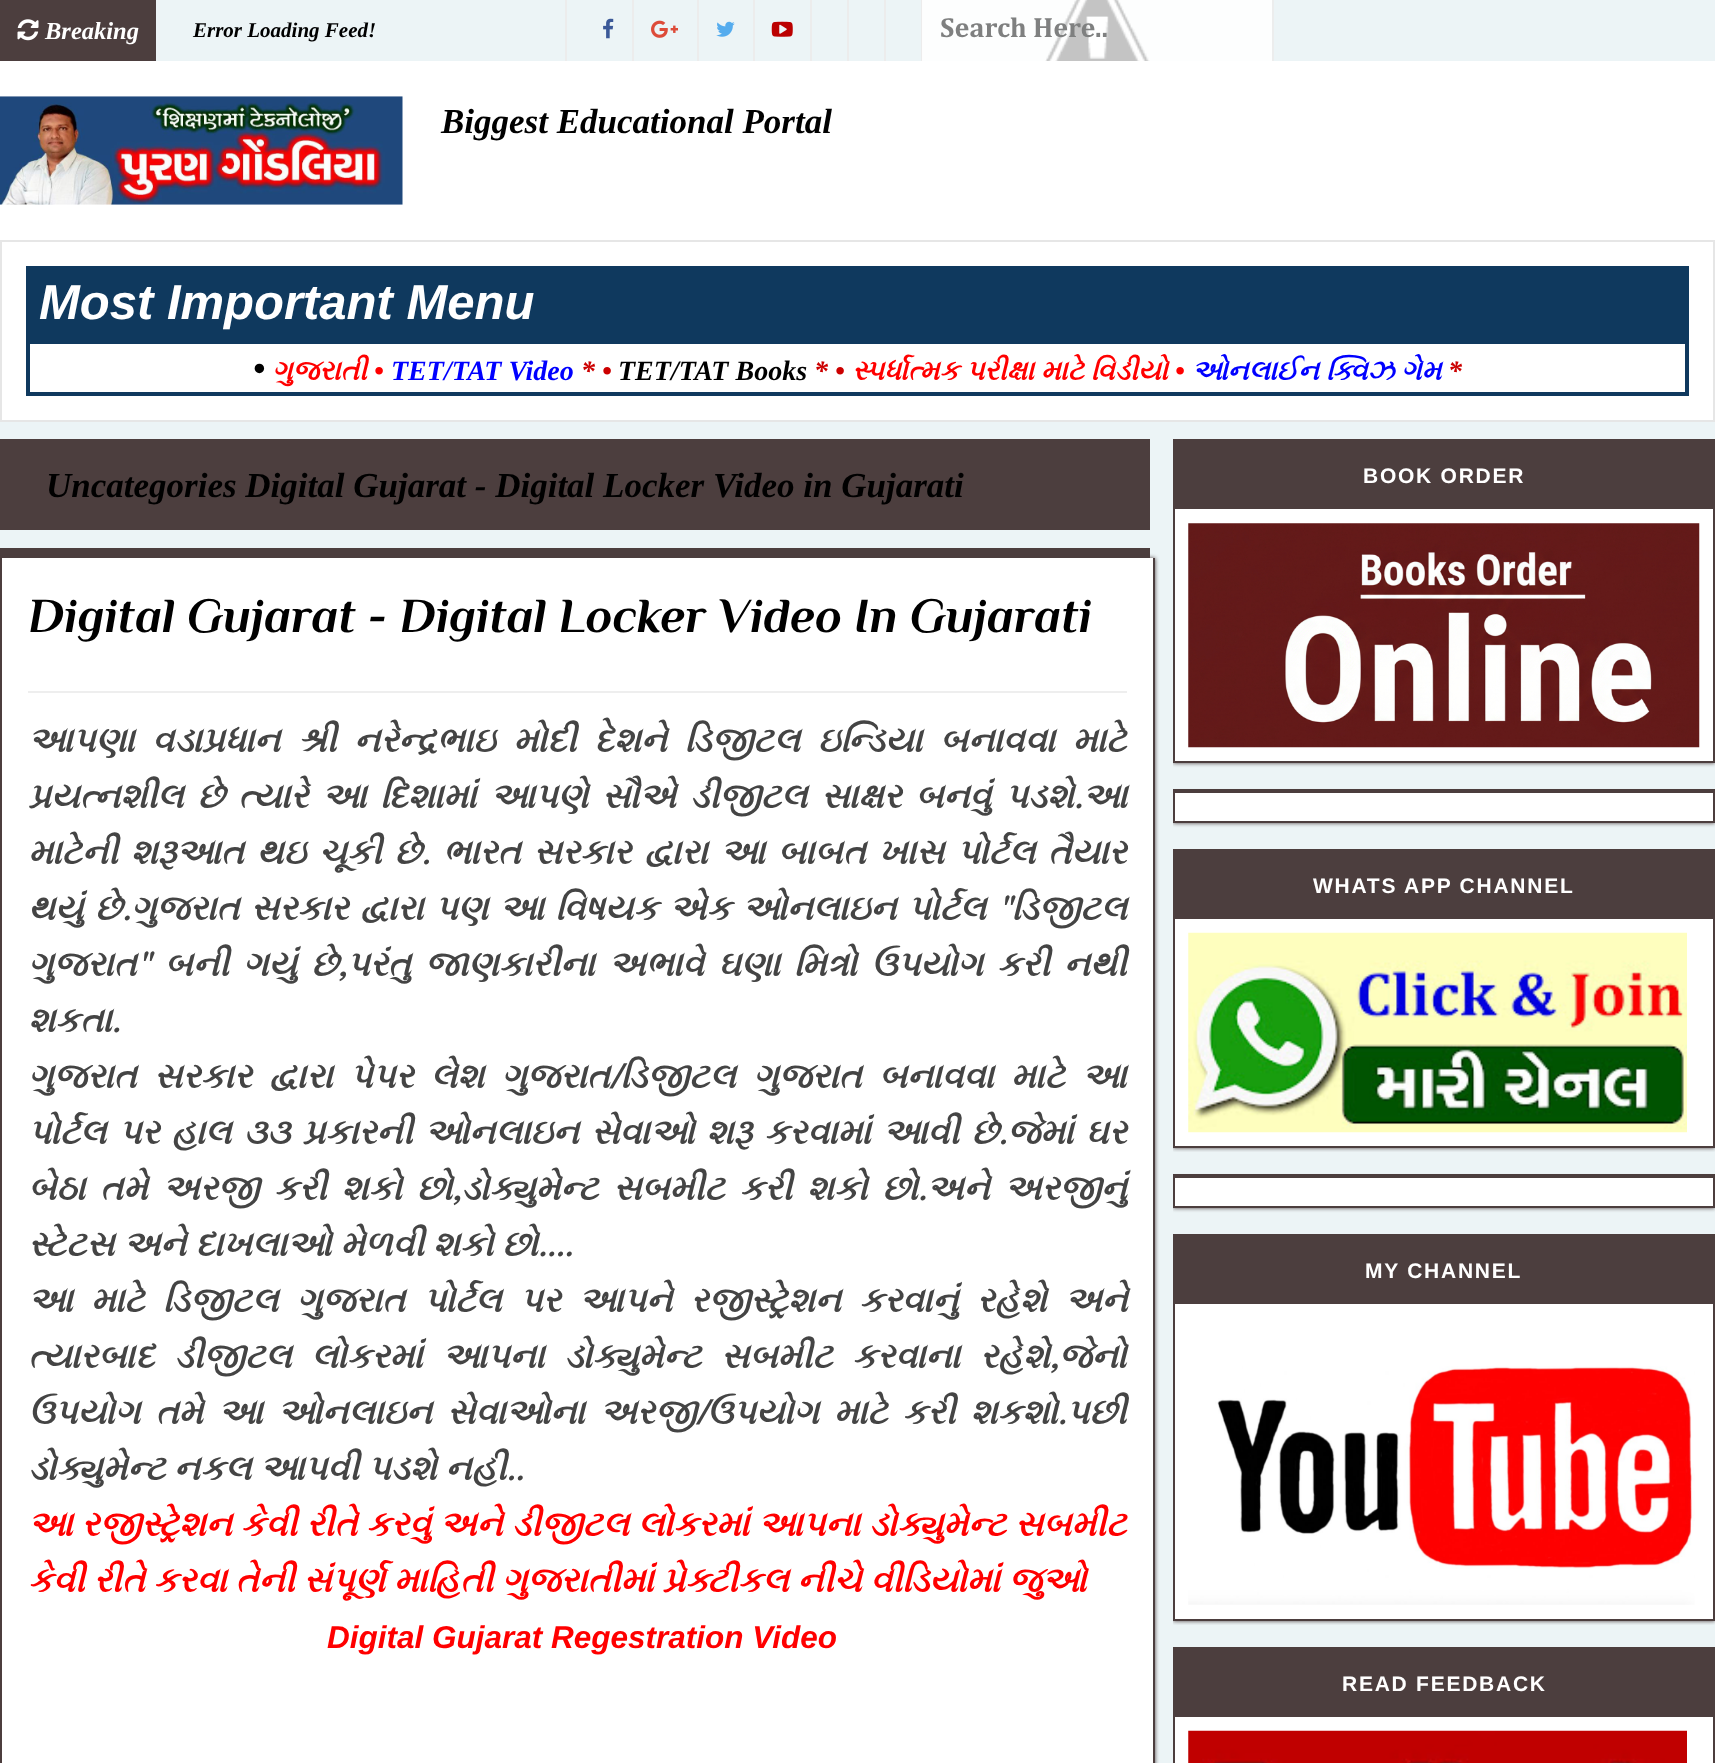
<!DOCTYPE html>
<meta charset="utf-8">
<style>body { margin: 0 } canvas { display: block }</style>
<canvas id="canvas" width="1715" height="1763"></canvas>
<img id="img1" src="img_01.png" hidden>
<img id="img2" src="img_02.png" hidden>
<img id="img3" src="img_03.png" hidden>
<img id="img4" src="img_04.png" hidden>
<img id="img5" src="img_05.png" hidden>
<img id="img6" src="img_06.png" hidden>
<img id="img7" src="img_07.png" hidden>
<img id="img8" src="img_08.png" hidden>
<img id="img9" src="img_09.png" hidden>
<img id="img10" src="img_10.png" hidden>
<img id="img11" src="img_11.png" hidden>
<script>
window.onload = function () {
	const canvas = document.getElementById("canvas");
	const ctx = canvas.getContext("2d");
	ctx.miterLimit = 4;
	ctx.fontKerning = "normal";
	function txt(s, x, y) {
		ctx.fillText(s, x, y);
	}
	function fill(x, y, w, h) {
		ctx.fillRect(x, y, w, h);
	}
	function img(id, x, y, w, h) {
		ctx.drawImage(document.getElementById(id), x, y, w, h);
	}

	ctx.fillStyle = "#ECF4F6";
	fill(0, 0, 1715, 1763);
	ctx.fillStyle = "#FDFEFE";
	fill(923, 0, 349, 61);
	ctx.fillStyle = "#ECECEC";
	fill(565, 0, 2, 61);
	ctx.fillStyle = "#4C3E3E";
	fill(0, 0, 156, 61);
	img("img1", 17, 19, 22, 22);
	ctx.fillStyle = "#ECECEC";
	fill(632, 0, 2, 61);
	img("img2", 603, 18, 11, 21);
	fill(697, 0, 2, 61);
	img("img3", 651, 20, 27, 18);
	fill(753, 0, 2, 61);
	img("img4", 716, 21, 19, 16);
	fill(810, 0, 2, 61);
	img("img5", 771, 21, 22, 16);
	fill(847, 0, 2, 61);
	fill(884, 0, 2, 61);
	fill(921, 0, 1, 61);
	ctx.fillStyle = "#FDFDFD";
	fill(922, 0, 1, 61);
	img("img6", 1045, 0, 105, 61);
	ctx.fillStyle = "#ECEDED";
	fill(1272, 0, 2, 61);
	ctx.fillStyle = "#FFFFFF";
	fill(0, 61, 1715, 179);
	img("img7", 0, 96, 403, 109);
	ctx.beginPath();
	ctx.rect(1, 241, 1713, 180);
	ctx.fill();
	ctx.strokeStyle = "#E6E6E6";
	ctx.lineWidth = 2;
	ctx.stroke();
	ctx.fillStyle = "#0F395E";
	fill(26, 266, 1663, 74);
	ctx.strokeStyle = "#0F395E";
	ctx.lineWidth = 4;
	ctx.strokeRect(28, 342, 1659, 52);
	ctx.fillStyle = "#4C3E3E";
	fill(0, 439, 1150, 91);
	fill(0, 548, 1150, 10);
	ctx.filter = "blur(2px)";
	ctx.beginPath();
	ctx.rect(0, 558, 1155, 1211);
	ctx.fill();
	ctx.filter = "none";
	ctx.fillStyle = "#FFFFFF";
	fill(2, 558, 1151, 1205);
	ctx.fillStyle = "#4C3E3E";
	fill(1153, 558, 2, 1205);
	fill(0, 558, 2, 1205);
	ctx.fillStyle = "#EEEEEE";
	fill(28, 691, 1099, 2);
	ctx.fillStyle = "#FFFFFF";
	fill(1175, 509, 538, 252);
	ctx.fillStyle = "#4C3E3E";
	fill(1173, 439, 542, 4);
	ctx.save();
	ctx.beginPath();
	ctx.rect(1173, 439, 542, 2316);
	ctx.clip();
	ctx.beginPath();
	ctx.moveTo(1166, 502);
	ctx.lineTo(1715, 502);
	ctx.lineTo(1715, 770);
	ctx.lineTo(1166, 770);
	ctx.closePath();
	ctx.moveTo(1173, 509);
	ctx.lineTo(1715, 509);
	ctx.lineTo(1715, 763);
	ctx.lineTo(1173, 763);
	ctx.closePath();
	ctx.clip("evenodd");
	ctx.filter = "blur(2px)";
	ctx.beginPath();
	ctx.rect(1173, 509, 542, 254);
	ctx.fill();
	ctx.filter = "none";
	ctx.restore();
	fill(1173, 443, 542, 66);
	fill(1713, 509, 2, 254);
	fill(1173, 761, 542, 2);
	fill(1173, 509, 2, 254);
	img("img8", 1188, 523, 512, 225);
	ctx.fillStyle = "#FFFFFF";
	fill(1175, 793, 538, 28);
	ctx.fillStyle = "#4C3E3E";
	fill(1173, 789, 542, 4);
	ctx.save();
	ctx.beginPath();
	ctx.rect(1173, 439, 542, 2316);
	ctx.clip();
	ctx.beginPath();
	ctx.moveTo(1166, 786);
	ctx.lineTo(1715, 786);
	ctx.lineTo(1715, 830);
	ctx.lineTo(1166, 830);
	ctx.closePath();
	ctx.moveTo(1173, 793);
	ctx.lineTo(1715, 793);
	ctx.lineTo(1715, 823);
	ctx.lineTo(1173, 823);
	ctx.closePath();
	ctx.clip("evenodd");
	ctx.filter = "blur(2px)";
	ctx.beginPath();
	ctx.rect(1173, 793, 542, 30);
	ctx.fill();
	ctx.filter = "none";
	ctx.restore();
	fill(1713, 793, 2, 30);
	fill(1173, 821, 542, 2);
	fill(1173, 793, 2, 30);
	ctx.fillStyle = "#FFFFFF";
	fill(1175, 919, 538, 227);
	ctx.fillStyle = "#4C3E3E";
	fill(1173, 849, 542, 3);
	ctx.save();
	ctx.beginPath();
	ctx.rect(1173, 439, 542, 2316);
	ctx.clip();
	ctx.beginPath();
	ctx.rect(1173, 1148, 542, 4);
	ctx.clip();
	ctx.filter = "blur(2px)";
	ctx.beginPath();
	ctx.rect(1173, 919, 542, 229);
	ctx.fill();
	ctx.filter = "none";
	ctx.restore();
	fill(1173, 852, 542, 67);
	fill(1713, 919, 2, 229);
	fill(1173, 1146, 542, 2);
	fill(1173, 919, 2, 229);
	img("img9", 1188, 932, 499, 201);
	ctx.fillStyle = "#FFFFFF";
	fill(1175, 1178, 538, 28);
	ctx.fillStyle = "#4C3E3E";
	fill(1173, 1174, 542, 4);
	ctx.save();
	ctx.beginPath();
	ctx.rect(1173, 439, 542, 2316);
	ctx.clip();
	ctx.beginPath();
	ctx.moveTo(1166, 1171);
	ctx.lineTo(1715, 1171);
	ctx.lineTo(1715, 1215);
	ctx.lineTo(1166, 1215);
	ctx.closePath();
	ctx.moveTo(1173, 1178);
	ctx.lineTo(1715, 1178);
	ctx.lineTo(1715, 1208);
	ctx.lineTo(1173, 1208);
	ctx.closePath();
	ctx.clip("evenodd");
	ctx.filter = "blur(2px)";
	ctx.beginPath();
	ctx.rect(1173, 1178, 542, 30);
	ctx.fill();
	ctx.filter = "none";
	ctx.restore();
	fill(1713, 1178, 2, 30);
	fill(1173, 1206, 542, 2);
	fill(1173, 1178, 2, 30);
	ctx.fillStyle = "#FFFFFF";
	fill(1175, 1304, 538, 315);
	ctx.fillStyle = "#4C3E3E";
	fill(1173, 1234, 542, 3);
	ctx.save();
	ctx.beginPath();
	ctx.rect(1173, 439, 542, 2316);
	ctx.clip();
	ctx.beginPath();
	ctx.rect(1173, 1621, 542, 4);
	ctx.clip();
	ctx.filter = "blur(2px)";
	ctx.beginPath();
	ctx.rect(1173, 1304, 542, 317);
	ctx.fill();
	ctx.filter = "none";
	ctx.restore();
	fill(1173, 1237, 542, 67);
	fill(1713, 1304, 2, 317);
	fill(1173, 1619, 542, 2);
	fill(1173, 1304, 2, 317);
	img("img10", 1188, 1366, 507, 239);
	ctx.fillStyle = "#FFFFFF";
	fill(1175, 1717, 538, 46);
	ctx.fillStyle = "#4C3E3E";
	fill(1173, 1647, 542, 70);
	fill(1713, 1717, 2, 46);
	fill(1173, 1717, 2, 46);
	img("img11", 1188, 1730, 499, 33);
	ctx.font = "italic bold 24.5px Liberation Serif";
	ctx.fillStyle = "#FFFFFF";
	txt("Breaking", 45, 39);
	ctx.font = "italic bold 21px Liberation Serif";
	ctx.fillStyle = "#000000";
	txt("Error Loading Feed!", 193, 37);
	ctx.font = "bold 28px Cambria";
	ctx.fillStyle = "#7F8080";
	txt("Search Here..", 940, 37);
	ctx.font = "italic bold 35px Liberation Serif";
	ctx.fillStyle = "#000000";
	txt("Biggest Educational Portal", 441, 133);
	ctx.font = "italic bold 49px Liberation Sans";
	ctx.fillStyle = "#FFFFFF";
	txt("Most Important Menu", 39, 319);
	ctx.font = "italic bold 28px Liberation Serif";
	ctx.fillStyle = "#0000FF";
	txt("TET/TAT Video", 391, 380);
	ctx.fillStyle = "#CC0000";
	txt("* •", 581, 380);
	ctx.fillStyle = "#000000";
	txt("TET/TAT Books", 618, 380);
	ctx.fillStyle = "#CC0000";
	txt("* •", 814, 380);
	ctx.font = "italic bold 28px FreeSerif";
	ctx.fillStyle = "#FF0000";
	txt("સ્પર્ધાત્મક પરીક્ષા માટે વિડીયો", 852, 380);
	ctx.fillStyle = "#0000FF";
	txt("ઓનલાઈન ક્વિઝ ગેમ", 1192, 380);
	ctx.font = "italic bold 28px Liberation Serif";
	ctx.fillStyle = "#CC0000";
	txt("*", 1448, 380);
	ctx.font = "italic bold 35px Liberation Serif";
	ctx.fillStyle = "#000000";
	txt("•", 253, 380);
	ctx.font = "italic bold 28px FreeSerif";
	ctx.fillStyle = "#FF0000";
	txt("ગુજરાતી", 272, 380);
	ctx.font = "italic bold 28px Liberation Serif";
	txt("•", 374, 380);
	txt("•", 1175, 380);
	ctx.font = "italic bold 35px Liberation Serif";
	ctx.fillStyle = "#000000";
	txt("Uncategories Digital Gujarat - Digital Locker Video in Gujarati", 46, 497);
	ctx.font = "italic bold 49px Philosopher";
	txt("Digital Gujarat - Digital Locker Video In Gujarati", 28, 632);
	ctx.wordSpacing = "9px";
	ctx.font = "italic bold 35px FreeSerif";
	ctx.fillStyle = "#444444";
	txt("આપણા વડાપ્રધાન શ્રી નરેન્દ્રભાઇ મોદી દેશને ડિજીટલ ઇન્ડિયા બનાવવા માટે", 28, 752);
	ctx.wordSpacing = "5px";
	txt("પ્રયત્નશીલ છે ત્યારે આ દિશામાં આપણે સૌએ ડીજીટલ સાક્ષર બનવું પડશે.આ", 28, 808);
	ctx.wordSpacing = "4px";
	txt("માટેની શરૂઆત થઇ ચૂકી છે. ભારત સરકાર દ્વારા આ બાબત ખાસ પોર્ટલ તૈયાર", 28, 864);
	ctx.wordSpacing = "2.6px";
	txt("થયું છે.ગુજરાત સરકાર દ્વારા પણ આ વિષયક એક ઓનલાઇન પોર્ટલ \"ડિજીટલ", 28, 920);
	ctx.wordSpacing = "5.25px";
	txt("ગુજરાત\" બની ગયું છે,પરંતુ જાણકારીના અભાવે ઘણા મિત્રો ઉપયોગ કરી નથી", 28, 976);
	ctx.wordSpacing = "0px";
	txt("શકતા.", 28, 1032);
	ctx.wordSpacing = "8.5px";
	txt("ગુજરાત સરકાર દ્વારા પેપર લેશ ગુજરાત/ડિજીટલ ગુજરાત બનાવવા માટે આ", 28, 1088);
	ctx.wordSpacing = "3.4px";
	txt("પોર્ટલ પર હાલ ૩૩ પ્રકારની ઓનલાઇન સેવાઓ શરૂ કરવામાં આવી છે.જેમાં ઘર", 28, 1144);
	ctx.wordSpacing = "6px";
	txt("બેઠા તમે અરજી કરી શકો છો,ડોક્યુમેન્ટ સબમીટ કરી શકો છો.અને અરજીનું", 28, 1200);
	ctx.wordSpacing = "0px";
	txt("સ્ટેટસ અને દાખલાઓ મેળવી શકો છો....", 28, 1256);
	ctx.wordSpacing = "9.5px";
	txt("આ માટે ડિજીટલ ગુજરાત પોર્ટલ પર આપને રજીસ્ટ્રેશન કરવાનું રહેશે અને", 28, 1312);
	ctx.wordSpacing = "11px";
	txt("ત્યારબાદ ડીજીટલ લોકરમાં આપના ડોક્યુમેન્ટ સબમીટ કરવાના રહેશે,જેનો", 28, 1368);
	ctx.wordSpacing = "6.25px";
	txt("ઉપયોગ તમે આ ઓનલાઇન સેવાઓના અરજી/ઉપયોગ માટે કરી શકશો.પછી", 28, 1424);
	ctx.wordSpacing = "0px";
	txt("ડોક્યુમેન્ટ નકલ આપવી પડશે નહી..", 28, 1480);
	ctx.wordSpacing = "0.1px";
	ctx.fillStyle = "#FF0000";
	txt("આ રજીસ્ટ્રેશન કેવી રીતે કરવું અને ડીજીટલ લોકરમાં આપના ડોક્યુમેન્ટ સબમીટ", 28, 1536);
	ctx.wordSpacing = "0px";
	txt("કેવી રીતે કરવા તેની સંપૂર્ણ માહિતી ગુજરાતીમાં પ્રેક્ટીકલ નીચે વીડિયોમાં જુઓ", 28, 1592);
	ctx.font = "italic bold 31.5px Liberation Sans";
	txt("Digital Gujarat Regestration Video", 327, 1648);
	ctx.letterSpacing = "1.75px";
	ctx.font = "bold 21px Liberation Sans";
	ctx.fillStyle = "#FFFFFF";
	txt("BOOK ORDER", 1363, 483);
	txt("WHATS APP CHANNEL", 1313, 893);
	txt("MY CHANNEL", 1365, 1278);
	txt("READ FEEDBACK", 1342, 1691);
};
</script>
